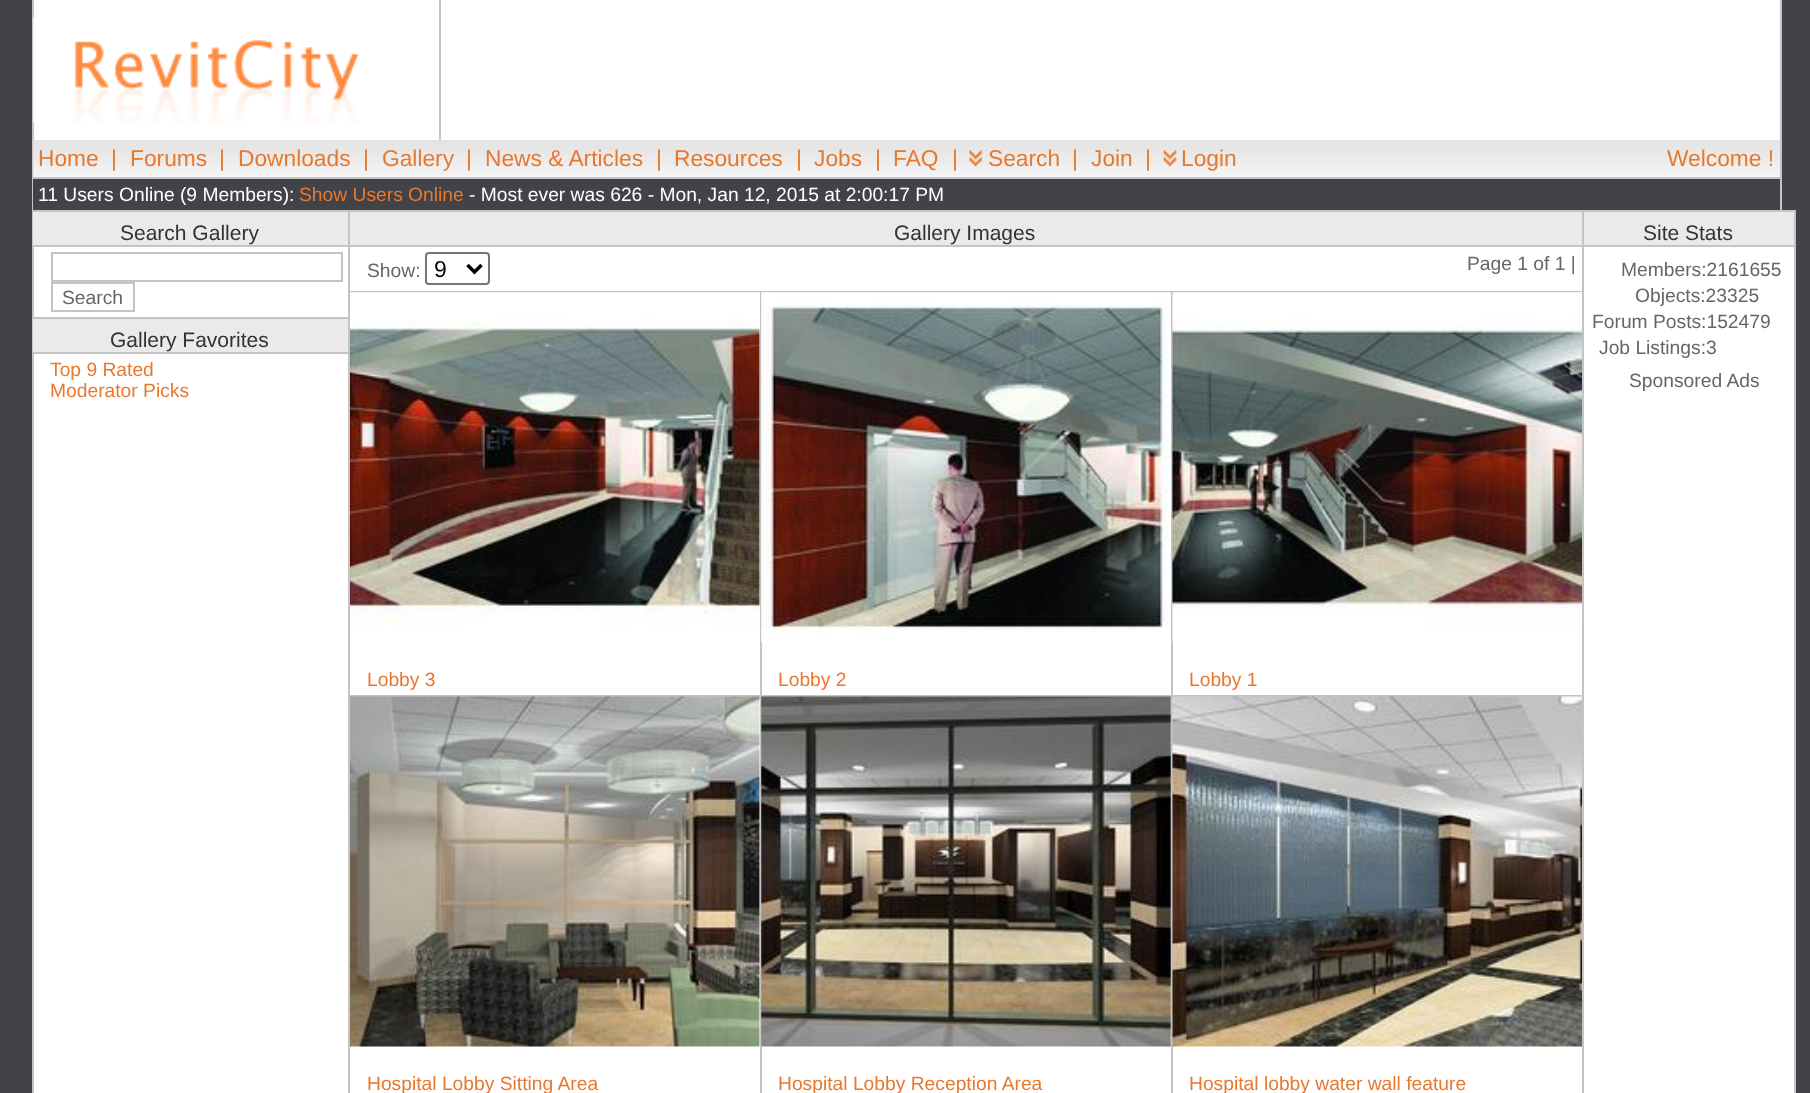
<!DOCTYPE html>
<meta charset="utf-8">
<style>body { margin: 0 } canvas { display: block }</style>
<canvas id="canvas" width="1810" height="1093"></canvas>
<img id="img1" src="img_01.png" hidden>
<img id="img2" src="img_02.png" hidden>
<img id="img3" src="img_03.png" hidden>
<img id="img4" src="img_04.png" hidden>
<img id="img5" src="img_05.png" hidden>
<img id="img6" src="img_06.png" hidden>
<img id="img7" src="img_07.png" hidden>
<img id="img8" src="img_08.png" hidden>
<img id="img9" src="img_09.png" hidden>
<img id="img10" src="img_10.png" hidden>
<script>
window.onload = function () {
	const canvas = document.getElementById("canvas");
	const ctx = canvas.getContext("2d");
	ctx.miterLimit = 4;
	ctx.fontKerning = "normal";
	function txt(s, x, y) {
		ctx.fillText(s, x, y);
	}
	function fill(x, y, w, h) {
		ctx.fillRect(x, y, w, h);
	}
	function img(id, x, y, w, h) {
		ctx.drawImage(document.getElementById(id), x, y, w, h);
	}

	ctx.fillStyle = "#424249";
	fill(0, 0, 1810, 1093);
	ctx.fillStyle = "#FFFFFF";
	fill(34, 0, 1746, 177);
	ctx.fillStyle = "#C4C4C4";
	fill(1780, 0, 2, 210);
	fill(32, 0, 2, 1093);
	img("img1", 33, 17, 327, 106);
	fill(439, 0, 2, 140);
	img("img2", 33, 140, 1747, 37);
	img("img3", 969, 150, 14, 17);
	img("img4", 1163, 150, 14, 17);
	ctx.fillStyle = "#424249";
	fill(33, 179, 1, 31);
	ctx.fillStyle = "#C4C4C4";
	fill(33, 177, 1747, 2);
	ctx.fillStyle = "#FFFFFF";
	fill(34, 247, 1760, 846);
	ctx.fillStyle = "#C4C4C4";
	fill(1794, 210, 2, 883);
	fill(348, 210, 2, 883);
	ctx.fillStyle = "#EAEAEA";
	fill(33, 212, 315, 33);
	ctx.fillStyle = "#C4C4C4";
	fill(33, 210, 315, 2);
	fill(33, 245, 315, 2);
	ctx.strokeStyle = "#C4C4C4";
	ctx.lineWidth = 2;
	ctx.strokeRect(52, 253, 290, 28);
	ctx.strokeRect(52, 283, 82, 28);
	ctx.fillStyle = "#EAEAEA";
	fill(33, 319, 315, 33);
	ctx.fillStyle = "#C4C4C4";
	fill(33, 317, 315, 2);
	fill(33, 352, 315, 2);
	ctx.fillStyle = "#EAEAEA";
	fill(350, 212, 1232, 33);
	ctx.fillStyle = "#C4C4C4";
	fill(350, 210, 1232, 2);
	fill(350, 245, 1232, 2);
	ctx.beginPath();
	ctx.roundRect(426, 253, 63, 31, 3);
	ctx.strokeStyle = "#767676";
	ctx.stroke();
	ctx.beginPath();
	ctx.moveTo(467.5, 265);
	ctx.lineTo(474.5, 272);
	ctx.lineTo(481.5, 265);
	ctx.strokeStyle = "#000000";
	ctx.lineWidth = 3.5;
	ctx.stroke();
	fill(760, 291, 822, 2);
	fill(760, 695, 822, 2);
	fill(760, 695, 2, 398);
	fill(348, 695, 413, 2);
	fill(760, 291, 2, 406);
	fill(348, 291, 413, 2);
	img("img5", 350, 292, 410, 335);
	fill(1171, 695, 2, 398);
	fill(1171, 291, 2, 406);
	img("img6", 761, 292, 410, 351);
	img("img7", 1172, 292, 410, 351);
	img("img8", 350, 696, 410, 351);
	img("img9", 761, 696, 410, 351);
	img("img10", 1172, 696, 410, 351);
	fill(1582, 210, 2, 883);
	ctx.fillStyle = "#EAEAEA";
	fill(1584, 212, 210, 33);
	ctx.fillStyle = "#C4C4C4";
	fill(1584, 210, 210, 2);
	fill(1584, 245, 210, 2);
	ctx.font = "22.75px Liberation Sans";
	ctx.fillStyle = "#E8782D";
	txt("Home", 38, 166);
	txt("|", 111, 166);
	txt("Forums", 130, 166);
	txt("|", 219, 166);
	txt("Downloads", 238, 166);
	txt("|", 363, 166);
	txt("Gallery", 382, 166);
	txt("|", 466, 166);
	txt("News & Articles", 485, 166);
	txt("|", 656, 166);
	txt("Resources", 674, 166);
	txt("|", 796, 166);
	txt("Jobs", 814, 166);
	txt("|", 875, 166);
	txt("FAQ", 893, 166);
	txt("|", 952, 166);
	txt("Search", 988, 166);
	txt("|", 1072, 166);
	txt("Join", 1091, 166);
	txt("|", 1145, 166);
	txt("Login", 1181, 166);
	txt("Welcome !", 1667, 166);
	ctx.font = "19.25px Liberation Sans";
	ctx.fillStyle = "#FFFFFF";
	txt("11 Users Online (9 Members):", 38, 201);
	ctx.fillStyle = "#E8782D";
	txt("Show Users Online", 299, 201);
	ctx.fillStyle = "#FFFFFF";
	txt("- Most ever was 626 - Mon, Jan 12, 2015 at 2:00:17 PM", 469, 201);
	ctx.font = "21px Liberation Sans";
	ctx.fillStyle = "#333333";
	txt("Search Gallery", 120, 240);
	ctx.font = "19.25px Liberation Sans";
	ctx.fillStyle = "#666666";
	txt("Search", 62, 304);
	ctx.font = "21px Liberation Sans";
	ctx.fillStyle = "#333333";
	txt("Gallery Favorites", 110, 347);
	ctx.font = "19.25px Liberation Sans";
	ctx.fillStyle = "#E8782D";
	txt("Top 9 Rated", 50, 376);
	txt("Moderator Picks", 50, 397);
	ctx.font = "21px Liberation Sans";
	ctx.fillStyle = "#333333";
	txt("Gallery Images", 894, 240);
	ctx.font = "19.25px Liberation Sans";
	ctx.fillStyle = "#666666";
	txt("Show:", 367, 277);
	ctx.font = "23px Liberation Sans";
	ctx.fillStyle = "#000000";
	txt("9", 434, 277);
	ctx.font = "19.25px Liberation Sans";
	ctx.fillStyle = "#666666";
	txt("Page 1 of 1 |", 1467, 270);
	ctx.fillStyle = "#E8782D";
	txt("Lobby 3", 367, 686);
	txt("Lobby 2", 778, 686);
	txt("Lobby 1", 1189, 686);
	txt("Hospital Lobby Sitting Area", 367, 1090);
	txt("Hospital Lobby Reception Area", 778, 1090);
	txt("Hospital lobby water wall feature", 1189, 1090);
	ctx.font = "21px Liberation Sans";
	ctx.fillStyle = "#333333";
	txt("Site Stats", 1643, 240);
	ctx.font = "19.25px Liberation Sans";
	ctx.fillStyle = "#666666";
	txt("Members:2161655", 1621, 276);
	txt("Objects:23325", 1635, 302);
	txt("Forum Posts:152479", 1592, 328);
	txt("Job Listings:3", 1599, 354);
	txt("Sponsored Ads", 1629, 387);
};
</script>
